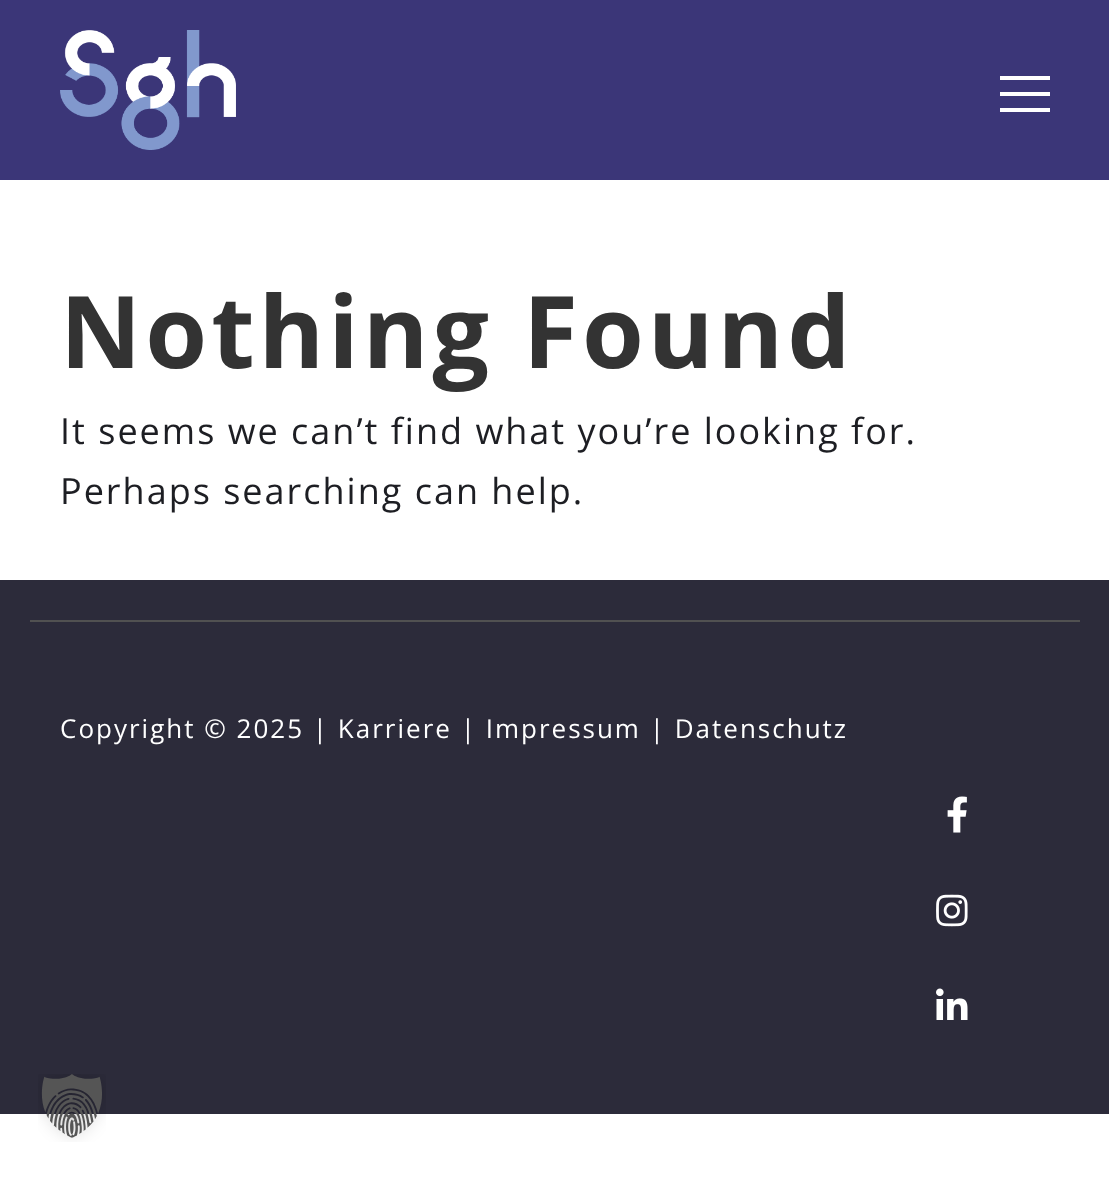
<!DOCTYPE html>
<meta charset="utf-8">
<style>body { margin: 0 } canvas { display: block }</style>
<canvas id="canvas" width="1109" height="1178"></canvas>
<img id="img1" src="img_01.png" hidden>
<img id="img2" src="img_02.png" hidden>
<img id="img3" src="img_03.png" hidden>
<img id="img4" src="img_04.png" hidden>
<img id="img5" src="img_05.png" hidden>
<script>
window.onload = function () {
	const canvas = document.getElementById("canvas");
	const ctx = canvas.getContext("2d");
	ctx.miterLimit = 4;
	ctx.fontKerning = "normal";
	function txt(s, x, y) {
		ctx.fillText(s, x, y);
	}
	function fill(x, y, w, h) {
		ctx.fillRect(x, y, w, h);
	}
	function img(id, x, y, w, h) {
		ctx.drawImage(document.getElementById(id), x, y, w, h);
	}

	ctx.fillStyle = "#FFFFFF";
	fill(0, 0, 1109, 1178);
	ctx.fillStyle = "#3B3678";
	fill(0, 0, 1109, 180);
	img("img1", 60, 30, 176, 120);
	ctx.fillStyle = "#FFFFFF";
	fill(1000, 76, 50, 4);
	fill(1000, 92, 50, 4);
	fill(1000, 108, 50, 4);
	ctx.fillStyle = "#2C2B3A";
	fill(0, 580, 1109, 534);
	ctx.fillStyle = "#515151";
	fill(30, 620, 1050, 2);
	img("img2", 947, 796, 20, 37);
	img("img3", 936, 894, 32, 33);
	img("img4", 936, 988, 32, 32);
	img("img5", 38, 1074, 68, 68);
	ctx.letterSpacing = "4px";
	ctx.font = "bold 100px Open Sans";
	ctx.fillStyle = "#333333";
	txt("Nothing Found", 60, 368);
	ctx.letterSpacing = "2px";
	ctx.font = "36px Open Sans";
	ctx.fillStyle = "#1D1E23";
	txt("It seems we can’t find what you’re looking for.", 60, 444);
	txt("Perhaps searching can help.", 60, 504);
	ctx.font = "26px Open Sans";
	ctx.fillStyle = "#FFFFFF";
	txt("Copyright © 2025 | Karriere | Impressum | Datenschutz", 60, 738);
};
</script>
